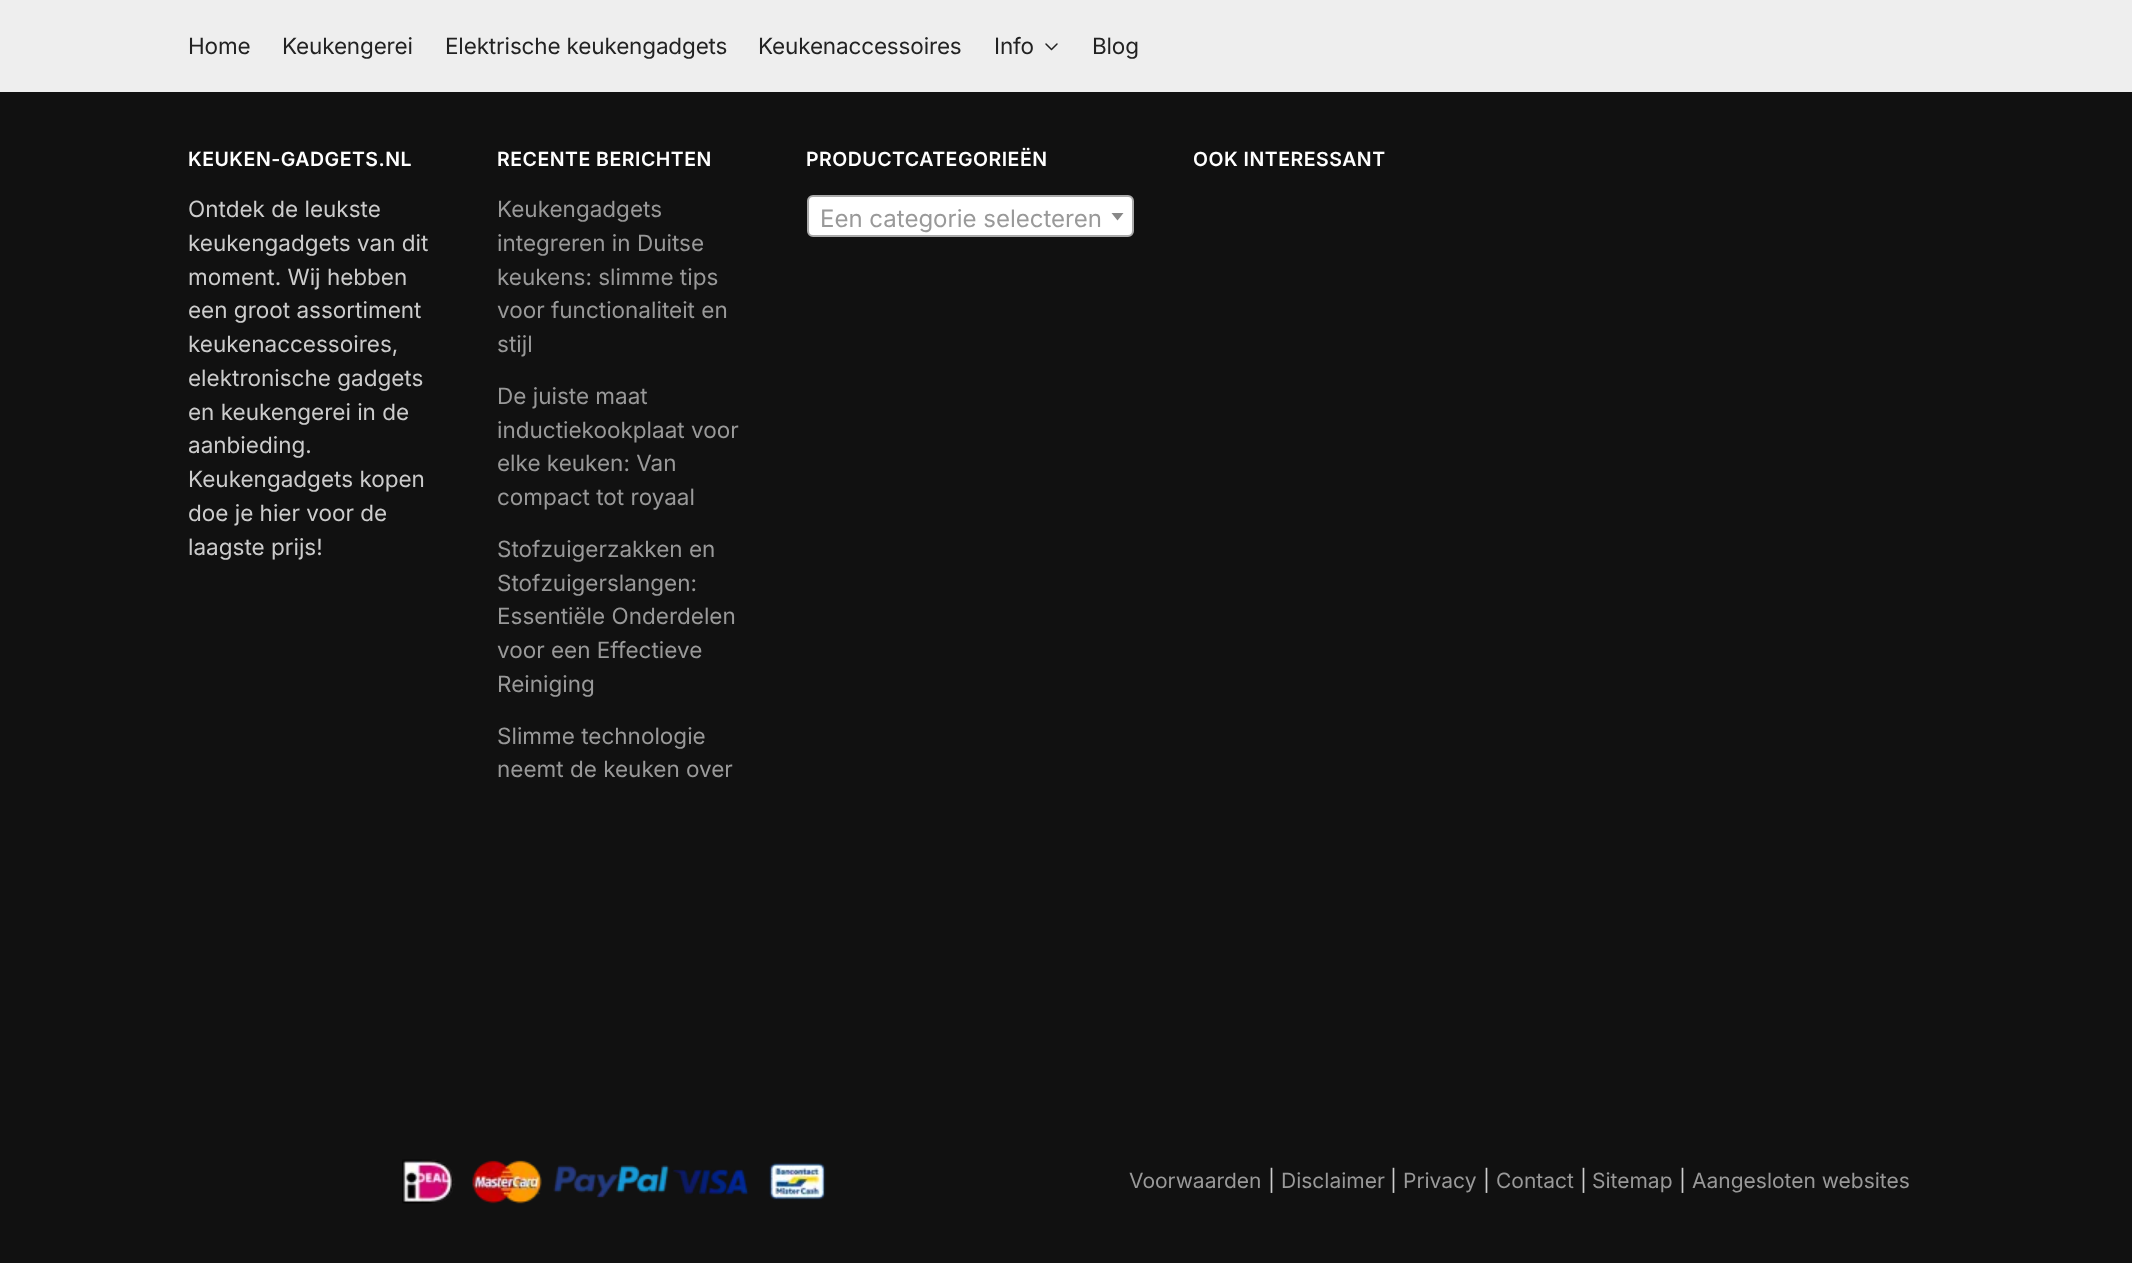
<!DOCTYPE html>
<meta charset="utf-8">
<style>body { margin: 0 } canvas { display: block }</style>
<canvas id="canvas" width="2153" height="1263"></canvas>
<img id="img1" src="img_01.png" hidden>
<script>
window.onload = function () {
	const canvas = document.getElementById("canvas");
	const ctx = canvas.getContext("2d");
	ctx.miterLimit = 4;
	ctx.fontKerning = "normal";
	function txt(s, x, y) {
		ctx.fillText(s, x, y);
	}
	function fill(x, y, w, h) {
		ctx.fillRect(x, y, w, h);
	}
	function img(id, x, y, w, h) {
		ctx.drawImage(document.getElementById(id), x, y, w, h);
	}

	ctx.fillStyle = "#FFFFFF";
	fill(0, 0, 2153, 1263);
	ctx.fillStyle = "#EEEEEE";
	fill(0, 0, 2132, 92);
	ctx.beginPath();
	ctx.moveTo(1057, 44);
	ctx.lineTo(1051.5, 49.5);
	ctx.lineTo(1046, 44);
	ctx.strokeStyle = "#222222";
	ctx.lineWidth = 1.5;
	ctx.lineCap = "round";
	ctx.lineJoin = "round";
	ctx.stroke();
	ctx.fillStyle = "#111111";
	fill(0, 92, 2132, 1171);
	ctx.fillStyle = "#FFFFFF";
	ctx.beginPath();
	ctx.roundRect(808, 196, 325, 40, 5);
	ctx.fill();
	ctx.strokeStyle = "#AAAAAA";
	ctx.lineWidth = 2;
	ctx.lineJoin = "miter";
	ctx.stroke();
	ctx.fillStyle = "#888888";
	ctx.beginPath();
	ctx.moveTo(1111.5, 213);
	ctx.lineTo(1123.5, 213);
	ctx.lineTo(1117.5, 220.5);
	ctx.closePath();
	ctx.fill();
	img("img1", 402, 1159, 424, 45);
	ctx.letterSpacing = "-0.15px";
	ctx.font = "22.5px Inter";
	ctx.fillStyle = "#222222";
	txt("Home", 188, 54);
	txt("Keukengerei", 282, 54);
	txt("Elektrische keukengadgets", 445, 54);
	txt("Keukenaccessoires", 758, 54);
	txt("Info", 994, 54);
	txt("Blog", 1092, 54);
	ctx.letterSpacing = "0.5px";
	ctx.font = "600 19.5px Inter";
	ctx.fillStyle = "#FFFFFF";
	txt("KEUKEN-GADGETS.NL", 188, 166);
	ctx.letterSpacing = "0px";
	ctx.font = "22.5px Inter";
	ctx.fillStyle = "#CCCCCC";
	txt("Ontdek de leukste", 188, 217);
	txt("keukengadgets van dit", 188, 251);
	txt("moment. Wij hebben", 188, 285);
	txt("een groot assortiment", 188, 318);
	txt("keukenaccessoires,", 188, 352);
	txt("elektronische gadgets", 188, 386);
	txt("en keukengerei in de", 188, 420);
	txt("aanbieding.", 188, 453);
	txt("Keukengadgets kopen", 188, 487);
	txt("doe je hier voor de", 188, 521);
	txt("laagste prijs!", 188, 555);
	ctx.letterSpacing = "0.5px";
	ctx.font = "600 19.5px Inter";
	ctx.fillStyle = "#FFFFFF";
	txt("RECENTE BERICHTEN", 497, 166);
	ctx.letterSpacing = "0px";
	ctx.font = "22.5px Inter";
	ctx.fillStyle = "#999999";
	txt("Keukengadgets", 497, 217);
	txt("integreren in Duitse", 497, 251);
	txt("keukens: slimme tips", 497, 285);
	txt("voor functionaliteit en", 497, 318);
	txt("stijl", 497, 352);
	txt("De juiste maat", 497, 404);
	txt("inductiekookplaat voor", 497, 438);
	txt("elke keuken: Van", 497, 471);
	txt("compact tot royaal", 497, 505);
	txt("Stofzuigerzakken en", 497, 557);
	txt("Stofzuigerslangen:", 497, 591);
	txt("Essentiële Onderdelen", 497, 624);
	txt("voor een Effectieve", 497, 658);
	txt("Reiniging", 497, 692);
	txt("Slimme technologie", 497, 744);
	txt("neemt de keuken over", 497, 777);
	ctx.letterSpacing = "0.5px";
	ctx.font = "600 19.5px Inter";
	ctx.fillStyle = "#FFFFFF";
	txt("PRODUCTCATEGORIEËN", 806, 166);
	ctx.letterSpacing = "0px";
	ctx.font = "24px Inter";
	ctx.fillStyle = "#999999";
	txt("Een categorie selecteren", 820, 227);
	ctx.letterSpacing = "0.5px";
	ctx.font = "600 19.5px Inter";
	ctx.fillStyle = "#FFFFFF";
	txt("OOK INTERESSANT", 1193, 166);
	ctx.letterSpacing = "0px";
	ctx.font = "21px Inter";
	ctx.fillStyle = "#999999";
	txt("Voorwaarden", 1129, 1188);
	ctx.fillStyle = "#CCCCCC";
	txt("|", 1268, 1188);
	ctx.fillStyle = "#999999";
	txt("Disclaimer", 1281, 1188);
	ctx.fillStyle = "#CCCCCC";
	txt("|", 1390, 1188);
	ctx.fillStyle = "#999999";
	txt("Privacy", 1403, 1188);
	ctx.fillStyle = "#CCCCCC";
	txt("|", 1483, 1188);
	ctx.fillStyle = "#999999";
	txt("Contact", 1496, 1188);
	ctx.fillStyle = "#CCCCCC";
	txt("|", 1580, 1188);
	ctx.fillStyle = "#999999";
	txt("Sitemap", 1592, 1188);
	ctx.fillStyle = "#CCCCCC";
	txt("|", 1679, 1188);
	ctx.fillStyle = "#999999";
	txt("Aangesloten websites", 1692, 1188);
};
</script>
